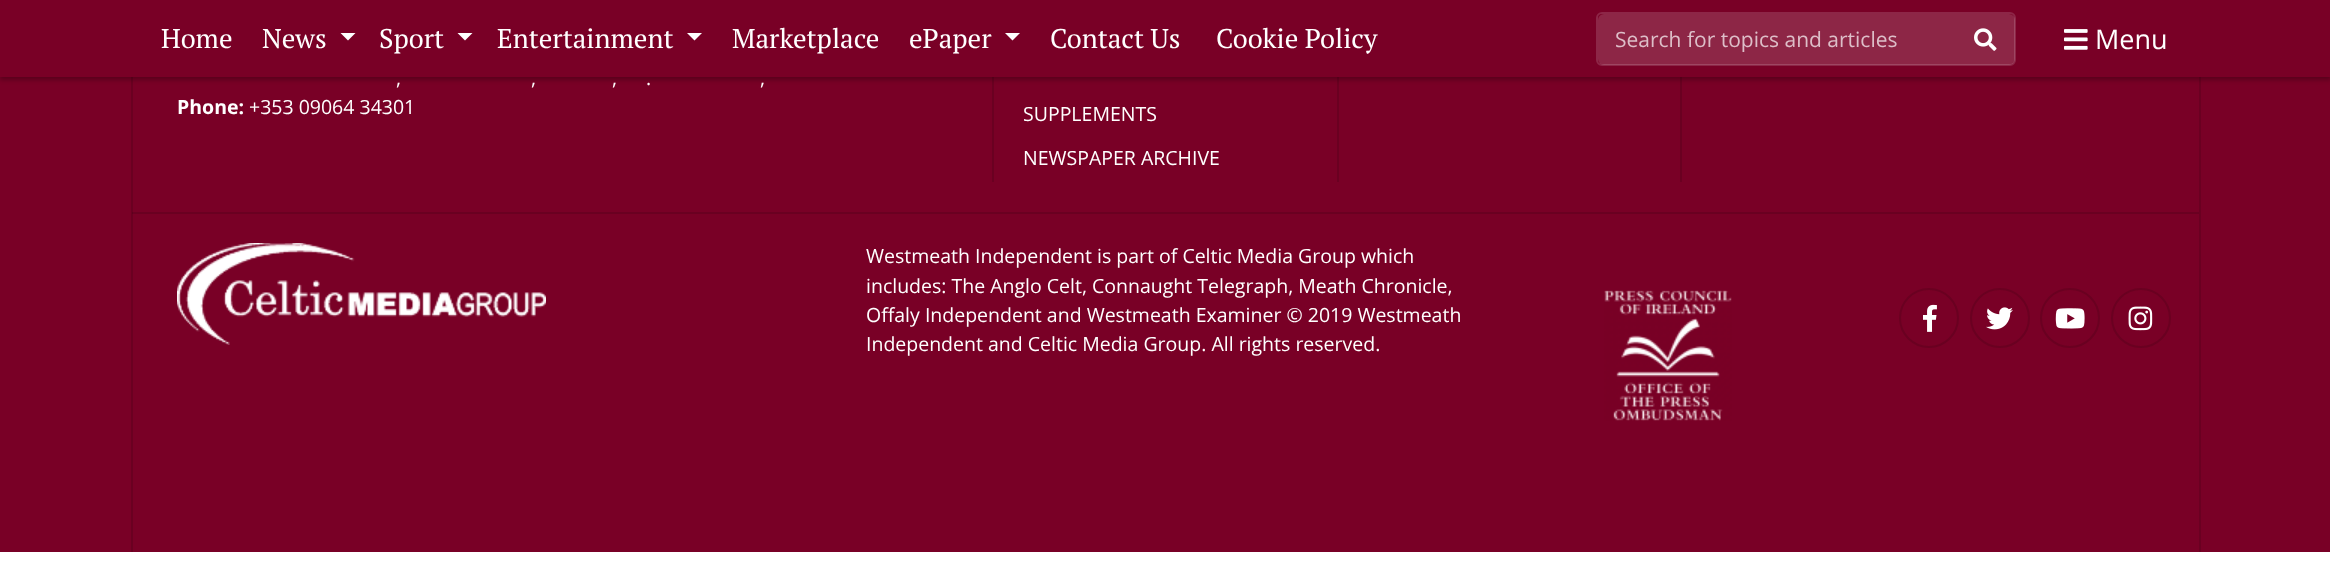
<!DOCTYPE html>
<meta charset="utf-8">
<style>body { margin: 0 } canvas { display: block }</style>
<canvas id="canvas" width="2330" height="566"></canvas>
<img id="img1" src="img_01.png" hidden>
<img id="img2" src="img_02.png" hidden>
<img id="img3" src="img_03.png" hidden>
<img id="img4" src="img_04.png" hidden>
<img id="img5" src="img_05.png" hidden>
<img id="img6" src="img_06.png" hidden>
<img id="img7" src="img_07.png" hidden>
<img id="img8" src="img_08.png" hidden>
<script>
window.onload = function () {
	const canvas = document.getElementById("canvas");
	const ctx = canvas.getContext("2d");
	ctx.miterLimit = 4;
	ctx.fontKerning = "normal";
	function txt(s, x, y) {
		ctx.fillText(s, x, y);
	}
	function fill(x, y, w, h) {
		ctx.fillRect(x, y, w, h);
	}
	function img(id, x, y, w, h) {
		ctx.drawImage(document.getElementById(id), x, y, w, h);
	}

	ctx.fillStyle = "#FFFFFF";
	fill(0, 0, 2330, 566);
	ctx.fillStyle = "#790026";
	fill(0, 77, 2330, 475);
	ctx.fillStyle = "#6A0021";
	fill(2199, 77, 2, 475);
	fill(132, 212, 2067, 2);
	fill(131, 77, 2, 475);
	fill(992, 77, 2, 105);
	fill(1680, 77, 2, 105);
	fill(1337, 77, 2, 105);
	ctx.fillStyle = "rgba(0, 0, 0, 0.25)";
	ctx.filter = "blur(2px)";
	ctx.beginPath();
	ctx.rect(0, 3, 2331, 77);
	ctx.fill();
	ctx.filter = "none";
	ctx.fillStyle = "#790026";
	fill(0, 0, 2330, 77);
	ctx.fillStyle = "#FFFFFF";
	ctx.beginPath();
	ctx.moveTo(340.5, 33);
	ctx.lineTo(355.5, 33);
	ctx.lineTo(348, 40.5);
	ctx.closePath();
	ctx.fill();
	ctx.beginPath();
	ctx.moveTo(457.5, 33);
	ctx.lineTo(472.5, 33);
	ctx.lineTo(465, 40.5);
	ctx.closePath();
	ctx.fill();
	ctx.beginPath();
	ctx.moveTo(687, 33);
	ctx.lineTo(702, 33);
	ctx.lineTo(694.5, 40.5);
	ctx.closePath();
	ctx.fill();
	ctx.beginPath();
	ctx.moveTo(1005, 33);
	ctx.lineTo(1020, 33);
	ctx.lineTo(1012.5, 40.5);
	ctx.closePath();
	ctx.fill();
	ctx.beginPath();
	ctx.roundRect(1597, 13, 418, 52, 5);
	ctx.strokeStyle = "#8D2647";
	ctx.lineWidth = 2;
	ctx.stroke();
	ctx.fillStyle = "rgba(255, 255, 255, 0.15)";
	ctx.beginPath();
	ctx.roundRect(1598, 14, 358, 51, [6, 0, 0, 6]);
	ctx.fill();
	ctx.beginPath();
	ctx.roundRect(1956, 14, 59, 51, [0, 6, 6, 0]);
	ctx.fill();
	img("img1", 1974, 28, 23, 23);
	img("img2", 2064, 29, 24, 21);
	ctx.fillStyle = "#5D001D";
	fill(132, 212, 1, 2);
	img("img3", 177, 243, 369, 102);
	img("img4", 1604, 290, 128, 131);
	ctx.beginPath();
	ctx.arc(1929, 318, 29, 0, Math.PI * 2);
	ctx.strokeStyle = "#6A0021";
	ctx.stroke();
	img("img5", 1923, 304, 14, 28);
	ctx.beginPath();
	ctx.arc(2000, 318, 29, 0, Math.PI * 2);
	ctx.stroke();
	img("img6", 1986, 307, 27, 23);
	ctx.beginPath();
	ctx.arc(2070, 318, 29, 0, Math.PI * 2);
	ctx.stroke();
	img("img7", 2055, 308, 30, 21);
	ctx.beginPath();
	ctx.arc(2141, 318, 29, 0, Math.PI * 2);
	ctx.stroke();
	img("img8", 2128, 306, 25, 25);
	ctx.font = "27px PT Serif";
	ctx.fillStyle = "#FFFFFF";
	txt("Home", 161, 48);
	txt("News", 262, 48);
	txt("Sport", 379, 48);
	txt("Entertainment", 497, 48);
	txt("Marketplace", 732, 48);
	txt("ePaper", 909, 48);
	txt("Contact Us", 1050, 48);
	txt("Cookie Policy", 1216, 48);
	ctx.font = "21px Open Sans";
	ctx.fillStyle = "#DDBEC8";
	txt("Search for topics and articles", 1615, 47);
	ctx.font = "27px Open Sans";
	ctx.fillStyle = "#FFFFFF";
	txt("Menu", 2095, 49);
	ctx.font = "19.5px Open Sans";
	txt(",", 396, 85);
	txt(",", 531, 85);
	txt(",", 612, 85);
	txt(".", 646, 85);
	txt(",", 760, 85);
	ctx.font = "bold 19.5px Open Sans";
	txt("Phone:", 177, 114);
	ctx.font = "19.5px Open Sans";
	txt("+353 09064 34301", 249, 114);
	txt("SUPPLEMENTS", 1023, 121);
	txt("NEWSPAPER ARCHIVE", 1023, 165);
	txt("Westmeath Independent is part of Celtic Media Group which", 866, 263);
	txt("includes: The Anglo Celt, Connaught Telegraph, Meath Chronicle,", 866, 293);
	txt("Offaly Independent and Westmeath Examiner © 2019 Westmeath", 866, 322);
	txt("Independent and Celtic Media Group. All rights reserved.", 866, 351);
};
</script>
